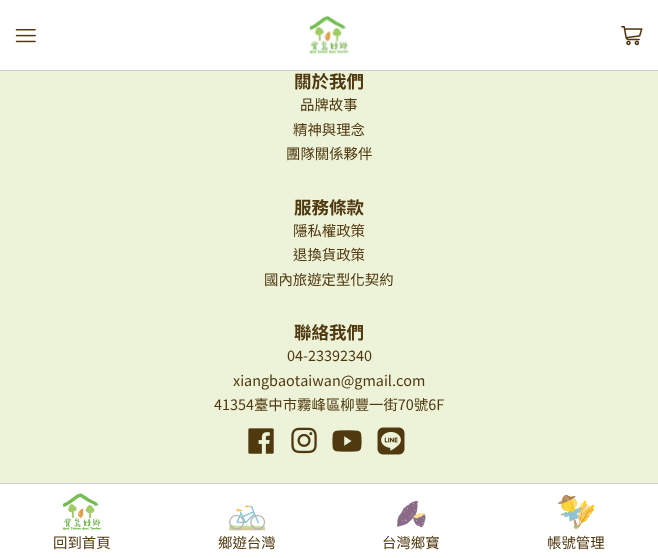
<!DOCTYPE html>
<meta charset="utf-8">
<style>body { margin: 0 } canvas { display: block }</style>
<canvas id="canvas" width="658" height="558"></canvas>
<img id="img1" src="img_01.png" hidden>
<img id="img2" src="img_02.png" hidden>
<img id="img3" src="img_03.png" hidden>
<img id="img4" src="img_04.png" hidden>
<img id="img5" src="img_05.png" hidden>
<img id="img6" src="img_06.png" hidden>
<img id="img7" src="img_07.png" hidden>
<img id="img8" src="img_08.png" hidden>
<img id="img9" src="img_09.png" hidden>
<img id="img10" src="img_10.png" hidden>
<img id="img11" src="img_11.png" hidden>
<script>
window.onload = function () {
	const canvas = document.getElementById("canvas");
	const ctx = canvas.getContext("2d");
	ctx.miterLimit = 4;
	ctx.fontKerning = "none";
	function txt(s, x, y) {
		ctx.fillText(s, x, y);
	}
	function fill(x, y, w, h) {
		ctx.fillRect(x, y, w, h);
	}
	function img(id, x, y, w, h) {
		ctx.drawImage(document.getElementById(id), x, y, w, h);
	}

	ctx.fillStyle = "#ECF3D9";
	fill(0, 0, 658, 558);
	ctx.fillStyle = "#FFFFFF";
	fill(0, 0, 658, 70);
	ctx.fillStyle = "#CCCCCC";
	fill(0, 70, 658, 1);
	img("img1", 15, 29, 21, 14);
	img("img2", 309, 15, 40, 40);
	img("img3", 621, 26, 22, 20);
	img("img4", 248, 428, 26, 26);
	img("img5", 291, 427, 26, 27);
	img("img6", 332, 430, 30, 22);
	img("img7", 377, 427, 28, 28);
	ctx.fillStyle = "#FFFFFF";
	fill(0, 484, 658, 74);
	ctx.fillStyle = "#CCCCCC";
	fill(0, 483, 658, 1);
	img("img8", 62, 493, 40, 38);
	img("img9", 229, 505, 37, 26);
	img("img10", 396, 500, 30, 28);
	img("img11", 557, 494, 38, 36);
	ctx.font = "bold 17.5px Noto Sans TC";
	ctx.fillStyle = "#50380F";
	txt("關於我們", 294, 88);
	ctx.font = "14.4px Noto Sans TC";
	txt("品牌故事", 300, 110);
	txt("精神與理念", 293, 135);
	txt("團隊關係夥伴", 286, 159);
	ctx.font = "bold 17.5px Noto Sans TC";
	txt("服務條款", 294, 214);
	ctx.font = "14.4px Noto Sans TC";
	txt("隱私權政策", 293, 236);
	txt("退換貨政策", 293, 260);
	txt("國內旅遊定型化契約", 264, 285);
	ctx.font = "bold 17.5px Noto Sans TC";
	txt("聯絡我們", 294, 339);
	ctx.font = "14.4px Noto Sans TC";
	txt("04-23392340", 287, 361);
	txt("xiangbaotaiwan@gmail.com", 233, 386);
	txt("41354臺中市霧峰區柳豐一街70號6F", 214, 410);
	txt("回到首頁", 53, 548);
	txt("鄉遊台灣", 218, 548);
	txt("台灣鄉寶", 382, 548);
	txt("帳號管理", 547, 548);
};
</script>
